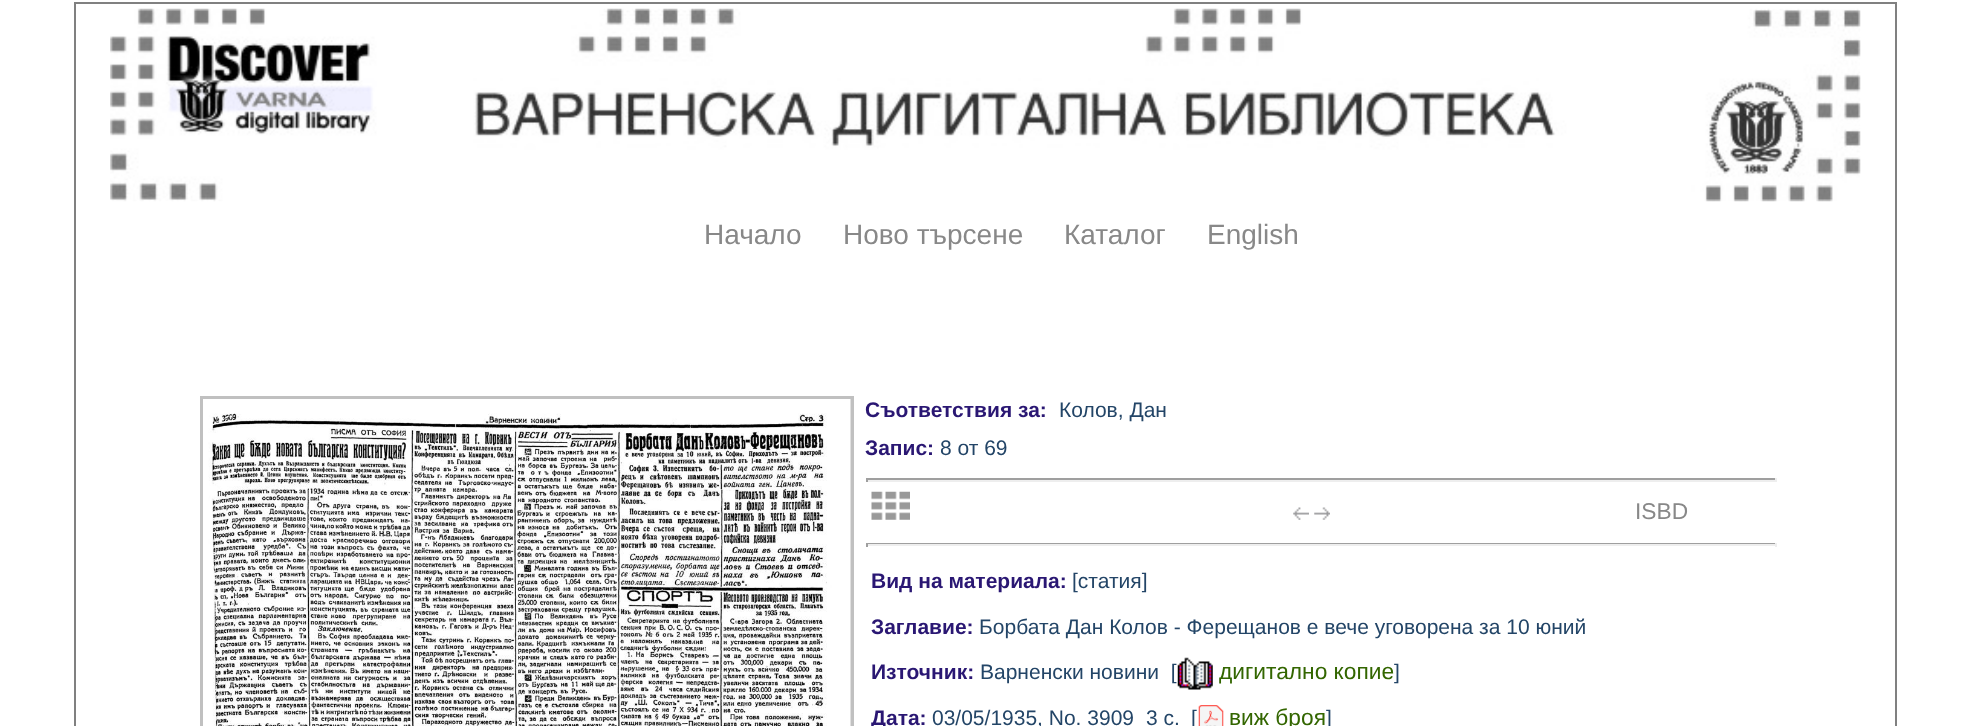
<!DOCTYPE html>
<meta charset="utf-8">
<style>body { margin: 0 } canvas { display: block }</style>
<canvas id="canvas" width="1968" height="726"></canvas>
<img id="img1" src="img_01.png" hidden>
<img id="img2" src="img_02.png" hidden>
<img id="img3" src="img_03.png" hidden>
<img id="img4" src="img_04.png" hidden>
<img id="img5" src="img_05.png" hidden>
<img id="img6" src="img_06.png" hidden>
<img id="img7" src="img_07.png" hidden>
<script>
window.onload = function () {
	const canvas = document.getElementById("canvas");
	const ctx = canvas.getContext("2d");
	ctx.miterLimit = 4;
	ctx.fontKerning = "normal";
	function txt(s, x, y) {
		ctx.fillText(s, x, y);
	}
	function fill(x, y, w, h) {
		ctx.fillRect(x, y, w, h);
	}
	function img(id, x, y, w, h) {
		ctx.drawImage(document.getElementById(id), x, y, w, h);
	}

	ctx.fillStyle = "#FFFFFF";
	fill(0, 0, 1968, 726);
	ctx.strokeStyle = "#808080";
	ctx.lineWidth = 2;
	ctx.strokeRect(75, 3, 1821, 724);
	img("img1", 110, 8, 1751, 194);
	ctx.strokeStyle = "#C0C0C0";
	ctx.lineWidth = 4;
	ctx.strokeRect(202, 398, 650, 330);
	img("img2", 203, 399, 648, 327);
	ctx.fillStyle = "#9F9F9F";
	fill(866, 478, 910, 2);
	ctx.fillStyle = "#EEEEEE";
	fill(1775, 478, 2, 4);
	fill(866, 480, 910, 2);
	ctx.fillStyle = "#9F9F9F";
	fill(866, 478, 2, 4);
	img("img3", 871, 491, 39, 29);
	img("img4", 1293, 507, 16, 13);
	img("img5", 1314, 507, 16, 13);
	fill(866, 543, 910, 1);
	ctx.fillStyle = "#EEEEEE";
	fill(1775, 543, 2, 4);
	fill(866, 544, 910, 2);
	ctx.fillStyle = "#9F9F9F";
	fill(866, 543, 2, 4);
	img("img6", 1177, 657, 36, 33);
	img("img7", 1198, 705, 26, 21);
	ctx.font = "28px Liberation Sans";
	ctx.fillStyle = "#888888";
	txt("Начало", 704, 244);
	txt("Ново търсене", 843, 244);
	txt("Каталог", 1064, 244);
	txt("English", 1207, 244);
	ctx.font = "bold 21px Liberation Sans";
	ctx.fillStyle = "#2A1773";
	txt("Съответствия за:", 865, 417);
	ctx.font = "21px Liberation Sans";
	ctx.fillStyle = "#234567";
	txt("Колов, Дан", 1059, 417);
	ctx.font = "bold 21px Liberation Sans";
	ctx.fillStyle = "#2A1773";
	txt("Запис:", 865, 455);
	ctx.font = "21px Liberation Sans";
	ctx.fillStyle = "#234567";
	txt("8 от 69", 940, 455);
	ctx.font = "22.75px Liberation Sans";
	ctx.fillStyle = "#888888";
	txt("ISBD", 1635, 519);
	ctx.font = "bold 21px Liberation Sans";
	ctx.fillStyle = "#2A1773";
	txt("Вид на материала:", 871, 588);
	ctx.font = "21px Liberation Sans";
	ctx.fillStyle = "#234567";
	txt("[статия]", 1072, 588);
	ctx.font = "bold 21px Liberation Sans";
	ctx.fillStyle = "#2A1773";
	txt("Заглавие:", 871, 634);
	ctx.font = "21px Liberation Sans";
	ctx.fillStyle = "#234567";
	txt("Борбата Дан Колов - Ферещанов е вече уговорена за 10 юний", 979, 634);
	ctx.font = "bold 21px Liberation Sans";
	ctx.fillStyle = "#2A1773";
	txt("Източник:", 871, 679);
	ctx.font = "21px Liberation Sans";
	ctx.fillStyle = "#234567";
	txt("Варненски новини  [", 980, 679);
	ctx.font = "22.75px Liberation Sans";
	ctx.fillStyle = "#336600";
	txt("дигитално копие", 1219, 679);
	ctx.font = "21px Liberation Sans";
	ctx.fillStyle = "#234567";
	txt("]", 1394, 679);
	ctx.font = "bold 21px Liberation Sans";
	ctx.fillStyle = "#2A1773";
	txt("Дата:", 871, 725);
	ctx.font = "21px Liberation Sans";
	ctx.fillStyle = "#234567";
	txt("03/05/1935, No. 3909", 932, 725);
	txt("3 с.", 1146, 725);
	txt("[", 1191, 725);
	ctx.font = "22.75px Liberation Sans";
	ctx.fillStyle = "#336600";
	txt("виж броя", 1229, 725);
	ctx.font = "21px Liberation Sans";
	ctx.fillStyle = "#234567";
	txt("]", 1326, 725);
};
</script>
